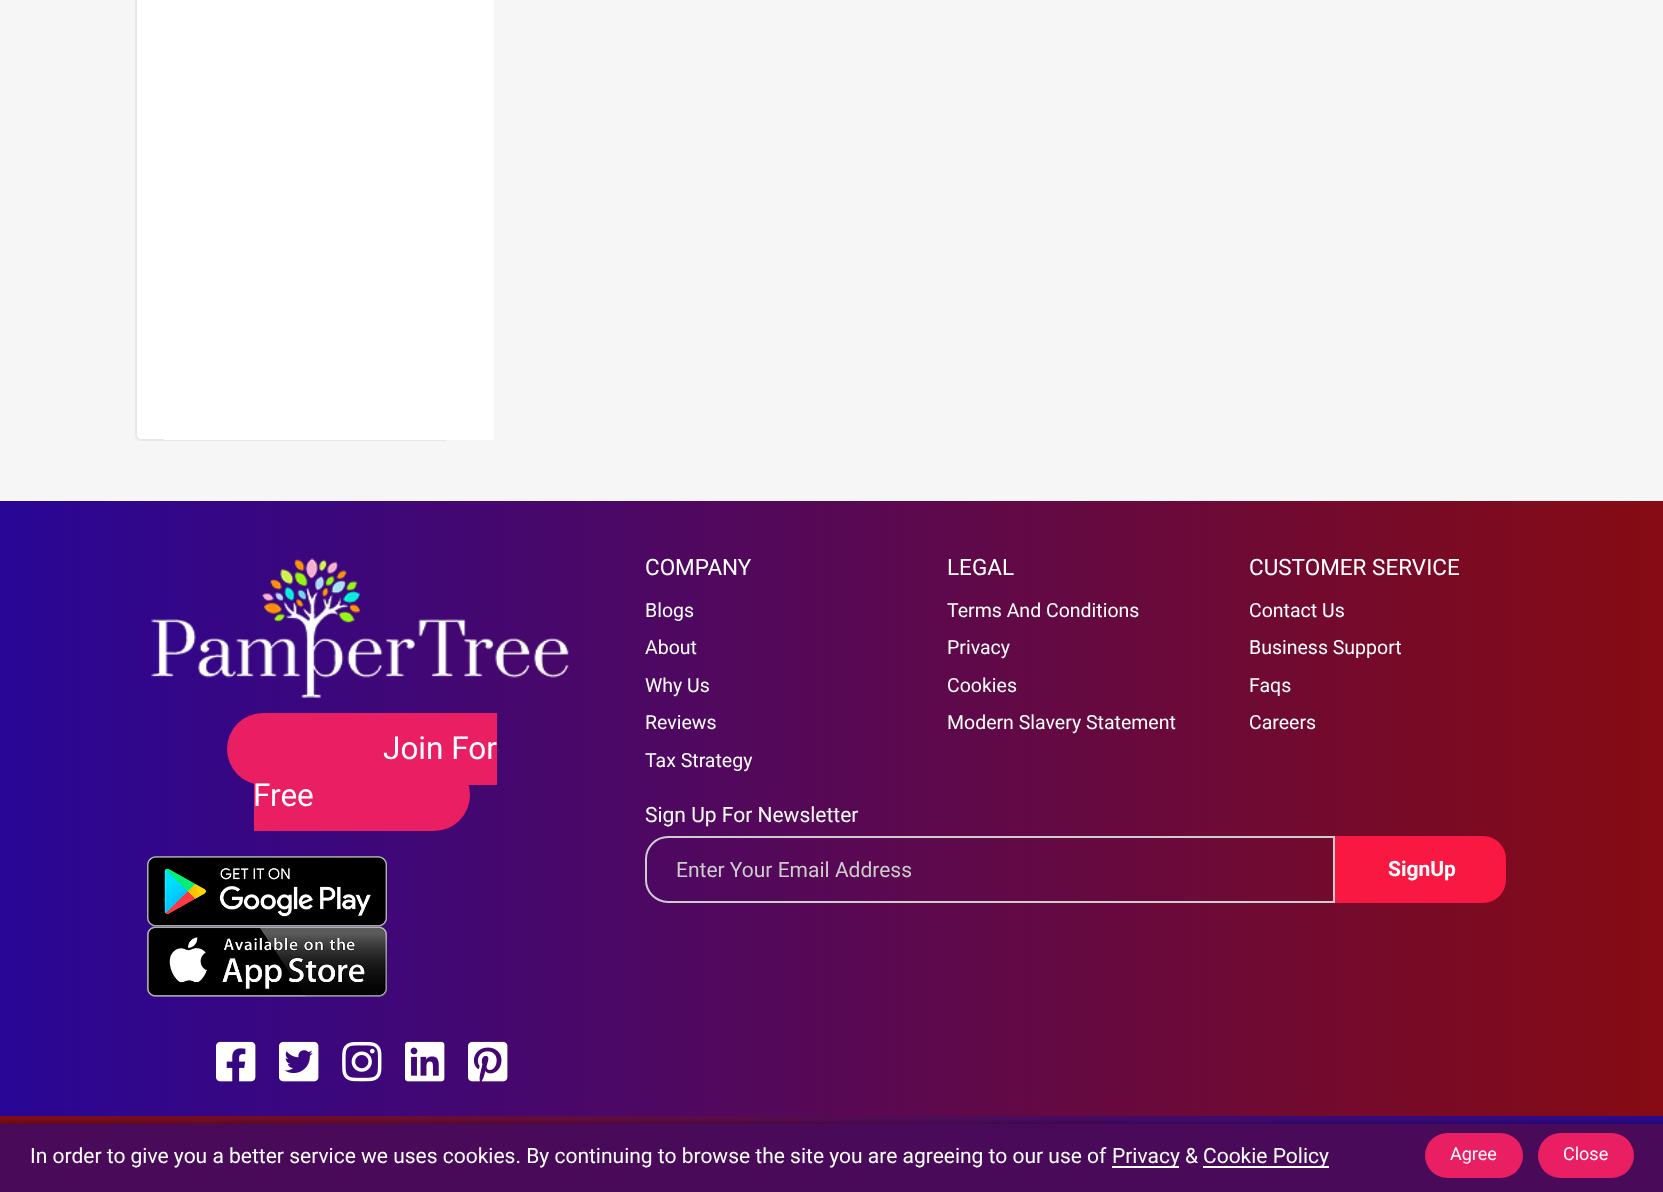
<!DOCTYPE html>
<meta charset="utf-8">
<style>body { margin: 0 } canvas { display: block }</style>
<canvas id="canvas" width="1663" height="1192"></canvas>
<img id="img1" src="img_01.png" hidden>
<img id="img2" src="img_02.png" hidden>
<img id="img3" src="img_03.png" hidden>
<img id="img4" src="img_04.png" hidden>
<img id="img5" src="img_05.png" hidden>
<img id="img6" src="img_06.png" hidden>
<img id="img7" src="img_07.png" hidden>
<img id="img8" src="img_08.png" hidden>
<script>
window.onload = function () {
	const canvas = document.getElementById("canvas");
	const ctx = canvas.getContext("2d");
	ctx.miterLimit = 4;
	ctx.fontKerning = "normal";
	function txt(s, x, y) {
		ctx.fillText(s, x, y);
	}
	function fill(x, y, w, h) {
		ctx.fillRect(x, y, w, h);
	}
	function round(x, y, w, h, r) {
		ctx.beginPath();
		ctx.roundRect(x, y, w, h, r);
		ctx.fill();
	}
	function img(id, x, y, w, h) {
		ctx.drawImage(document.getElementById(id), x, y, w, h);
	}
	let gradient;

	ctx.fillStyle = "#F6F6F6";
	fill(0, 0, 1663, 1192);
	ctx.fillStyle = "#FFFFFF";
	ctx.beginPath();
	ctx.roundRect(136, -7, 313, 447, 5);
	ctx.fill();
	ctx.strokeStyle = "#E6E7EA";
	ctx.lineWidth = 2;
	ctx.stroke();
	fill(164, 0, 330, 440);
	gradient = ctx.createLinearGradient(0, 809, 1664, 809);
	gradient.addColorStop(0, "#290696");
	gradient.addColorStop(1, "#860B13");
	ctx.fillStyle = gradient;
	fill(0, 501, 1663, 615);
	img("img1", 151, 558, 418, 140);
	ctx.fillStyle = "#E91E63";
	ctx.beginPath();
	ctx.roundRect(227, 713, 270, 72, [36, 0, 0, 36]);
	ctx.fill();
	ctx.beginPath();
	ctx.roundRect(254, 759, 216, 72, [0, 36, 36, 0]);
	ctx.fill();
	img("img2", 147, 856, 240, 71);
	img("img3", 147, 926, 240, 71);
	img("img4", 216, 1041, 40, 41);
	img("img5", 279, 1041, 40, 41);
	img("img6", 342, 1041, 40, 41);
	img("img7", 405, 1041, 40, 41);
	img("img8", 468, 1041, 40, 41);
	ctx.beginPath();
	ctx.roundRect(646, 837, 688, 65, [22, 0, 0, 22]);
	ctx.strokeStyle = "#CDCDCD";
	ctx.stroke();
	ctx.fillStyle = "#F91842";
	ctx.beginPath();
	ctx.roundRect(1335, 836, 171, 67, [0, 23, 23, 0]);
	ctx.fill();
	ctx.fillStyle = "#2A2A2A";
	fill(0, 1116, 1663, 8);
	gradient = ctx.createLinearGradient(0, 1154, 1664, 1154);
	gradient.addColorStop(0, "rgba(134, 11, 19, 0.9)");
	gradient.addColorStop(1, "rgba(41, 6, 150, 0.9)");
	ctx.fillStyle = gradient;
	fill(0, 1116, 1663, 8);
	ctx.fillStyle = "rgba(0, 0, 0, 0.2)";
	ctx.filter = "blur(1.5px)";
	ctx.beginPath();
	ctx.rect(-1, 1122, 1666, 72);
	ctx.fill();
	ctx.filter = "none";
	ctx.fillStyle = "#490A5A";
	fill(0, 1124, 1663, 68);
	ctx.fillStyle = "#FFFFFF";
	fill(1112, 1166, 67, 2);
	fill(1203, 1166, 126, 2);
	ctx.fillStyle = "#E91E63";
	round(1425, 1133, 98, 45, 22.5);
	round(1538, 1133, 96, 45, 22.5);
	ctx.font = "31.5px Roboto";
	ctx.fillStyle = "#FFFFFF";
	txt("Join For", 383, 759);
	txt("Free", 253, 806);
	ctx.font = "22.5px Roboto";
	txt("COMPANY", 645, 575);
	ctx.font = "19.5px Roboto";
	txt("Blogs", 645, 617);
	txt("About", 645, 654);
	txt("Why Us", 645, 692);
	txt("Reviews", 645, 729);
	txt("Tax Strategy", 645, 767);
	ctx.font = "22.5px Roboto";
	txt("LEGAL", 947, 575);
	ctx.font = "19.5px Roboto";
	txt("Terms And Conditions", 947, 617);
	txt("Privacy", 947, 654);
	txt("Cookies", 947, 692);
	txt("Modern Slavery Statement", 947, 729);
	ctx.font = "22.5px Roboto";
	txt("CUSTOMER SERVICE", 1249, 575);
	ctx.font = "19.5px Roboto";
	txt("Contact Us", 1249, 617);
	txt("Business Support", 1249, 654);
	txt("Faqs", 1249, 692);
	txt("Careers", 1249, 729);
	ctx.font = "21px Roboto";
	txt("Sign Up For Newsletter", 645, 822);
	ctx.fillStyle = "#CCCCCC";
	txt("Enter Your Email Address", 676, 877);
	ctx.font = "bold 21px Roboto";
	ctx.fillStyle = "#FFFFFF";
	txt("SignUp", 1388, 876);
	ctx.font = "21px Roboto";
	txt("In order to give you a better service we uses cookies. By continuing to browse the site you are agreeing to our use of", 30, 1163);
	txt("Privacy &", 1112, 1163);
	txt("Cookie Policy", 1203, 1163);
	ctx.font = "18px Roboto";
	txt("Agree", 1450, 1160);
	txt("Close", 1563, 1160);
};
</script>
